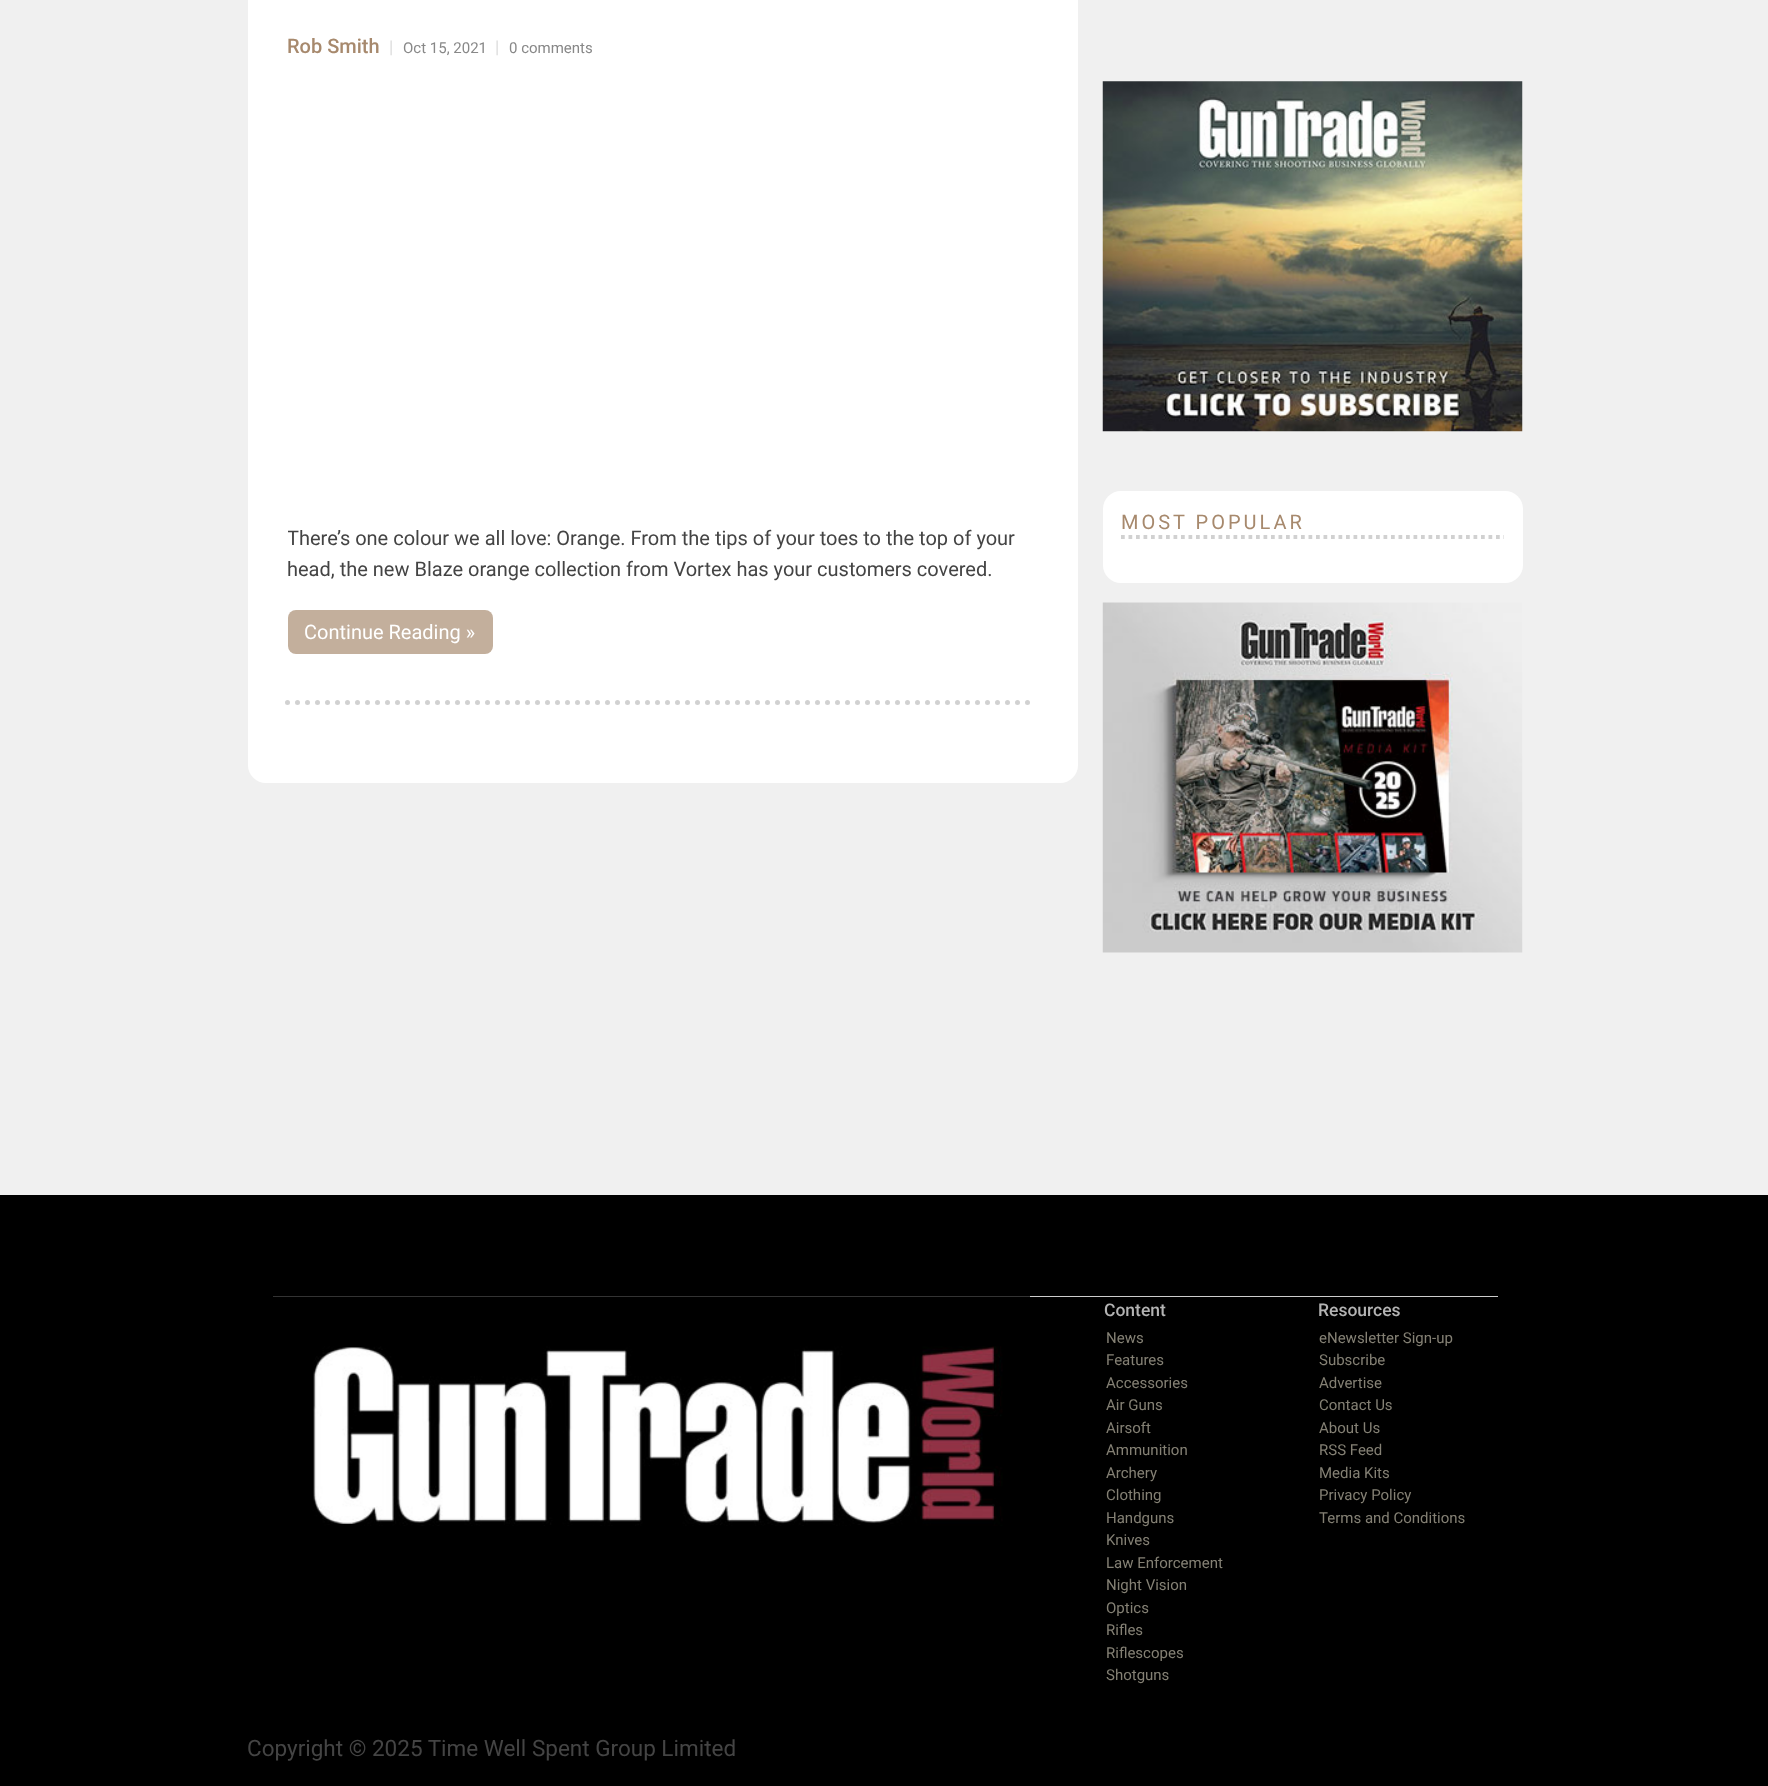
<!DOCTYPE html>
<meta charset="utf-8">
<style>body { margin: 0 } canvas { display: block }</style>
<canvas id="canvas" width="1768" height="1786"></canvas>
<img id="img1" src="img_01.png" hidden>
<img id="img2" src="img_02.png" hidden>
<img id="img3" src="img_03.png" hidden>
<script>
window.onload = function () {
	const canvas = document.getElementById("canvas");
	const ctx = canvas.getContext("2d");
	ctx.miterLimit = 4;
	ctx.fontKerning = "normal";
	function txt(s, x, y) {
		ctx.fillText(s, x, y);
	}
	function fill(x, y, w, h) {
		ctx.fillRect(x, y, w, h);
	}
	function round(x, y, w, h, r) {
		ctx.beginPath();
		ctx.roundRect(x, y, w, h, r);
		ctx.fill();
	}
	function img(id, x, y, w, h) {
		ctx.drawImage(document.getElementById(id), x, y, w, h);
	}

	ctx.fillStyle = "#000000";
	fill(0, 0, 1768, 1786);
	ctx.fillStyle = "#F0F0F0";
	fill(0, 0, 1768, 1195);
	ctx.fillStyle = "#FFFFFF";
	round(248, -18, 830, 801, 18);
	ctx.beginPath();
	ctx.moveTo(287.5, 702.5);
	ctx.lineTo(1037.5, 702.5);
	ctx.strokeStyle = "#D1D1D1";
	ctx.lineWidth = 5;
	ctx.lineCap = "round";
	ctx.setLineDash([0, 10]);
	ctx.stroke();
	ctx.fillStyle = "#C3AF9C";
	round(288, 610, 205, 44, 8);
	img("img1", 1102, 81, 421, 351);
	ctx.fillStyle = "#FFFFFF";
	round(1103, 491, 420, 92, 18);
	ctx.beginPath();
	ctx.moveTo(1121, 537);
	ctx.lineTo(1504, 537);
	ctx.lineWidth = 3.8;
	ctx.lineCap = "butt";
	ctx.setLineDash([3.75, 3.75]);
	ctx.stroke();
	img("img2", 1102, 602, 421, 351);
	ctx.fillStyle = "#CCCCCC";
	fill(273, 1296, 1225, 1);
	img("img3", 273, 1296, 757, 230);
	ctx.font = "500 20px Roboto";
	ctx.fillStyle = "#A7896D";
	txt("Rob Smith", 287, 53);
	ctx.font = "17.5px Roboto";
	ctx.fillStyle = "#DDDDDD";
	txt("|", 389, 53);
	ctx.font = "15px Roboto";
	ctx.fillStyle = "#888888";
	txt("Oct 15, 2021", 403, 53);
	ctx.font = "17.5px Roboto";
	ctx.fillStyle = "#DDDDDD";
	txt("|", 495, 53);
	ctx.font = "15px Roboto";
	ctx.fillStyle = "#888888";
	txt("0 comments", 509, 53);
	ctx.save();
	ctx.beginPath();
	ctx.rect(288, 0, 750, 700);
	ctx.clip();
	ctx.font = "20px Roboto";
	ctx.fillStyle = "#444444";
	txt("There’s one colour we all love: Orange. From the tips of your toes to the top of your", 287, 545);
	ctx.restore();
	ctx.font = "20px Roboto";
	ctx.fillStyle = "#444444";
	txt("head, the new Blaze orange collection from Vortex has your customers covered.", 287, 576);
	ctx.fillStyle = "#FFFFFF";
	txt("Continue Reading »", 304, 639);
	ctx.letterSpacing = "3px";
	ctx.fillStyle = "#A7896D";
	txt("MOST POPULAR", 1121, 529);
	ctx.letterSpacing = "0px";
	ctx.font = "500 17.5px Roboto";
	ctx.fillStyle = "#B3B3B3";
	txt("Content", 1104, 1316);
	ctx.font = "15px Roboto";
	ctx.fillStyle = "#848074";
	txt("News", 1106, 1343);
	txt("Features", 1106, 1365);
	txt("Accessories", 1106, 1388);
	txt("Air Guns", 1106, 1410);
	txt("Airsoft", 1106, 1433);
	txt("Ammunition", 1106, 1455);
	txt("Archery", 1106, 1478);
	txt("Clothing", 1106, 1500);
	txt("Handguns", 1106, 1523);
	txt("Knives", 1106, 1545);
	txt("Law Enforcement", 1106, 1568);
	txt("Night Vision", 1106, 1590);
	txt("Optics", 1106, 1613);
	txt("Rifles", 1106, 1635);
	txt("Riflescopes", 1106, 1658);
	txt("Shotguns", 1106, 1680);
	ctx.font = "500 17.5px Roboto";
	ctx.fillStyle = "#B3B3B3";
	txt("Resources", 1318, 1316);
	ctx.font = "15px Roboto";
	ctx.fillStyle = "#848074";
	txt("eNewsletter Sign-up", 1319, 1343);
	txt("Subscribe", 1319, 1365);
	txt("Advertise", 1319, 1388);
	txt("Contact Us", 1319, 1410);
	txt("About Us", 1319, 1433);
	txt("RSS Feed", 1319, 1455);
	txt("Media Kits", 1319, 1478);
	txt("Privacy Policy", 1319, 1500);
	txt("Terms and Conditions", 1319, 1523);
	ctx.font = "22.5px Roboto";
	ctx.fillStyle = "#444444";
	txt("Copyright © 2025 Time Well Spent Group Limited", 247, 1756);
};
</script>
